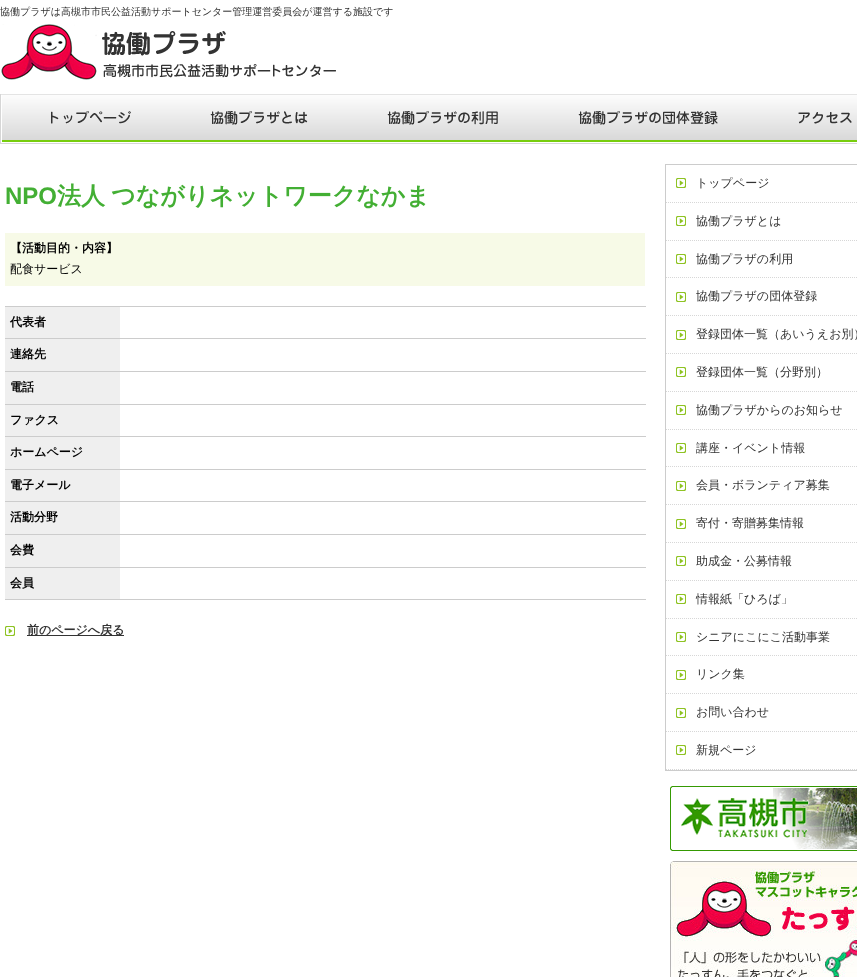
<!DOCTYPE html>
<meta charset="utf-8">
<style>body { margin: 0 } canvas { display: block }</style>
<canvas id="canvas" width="857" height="977"></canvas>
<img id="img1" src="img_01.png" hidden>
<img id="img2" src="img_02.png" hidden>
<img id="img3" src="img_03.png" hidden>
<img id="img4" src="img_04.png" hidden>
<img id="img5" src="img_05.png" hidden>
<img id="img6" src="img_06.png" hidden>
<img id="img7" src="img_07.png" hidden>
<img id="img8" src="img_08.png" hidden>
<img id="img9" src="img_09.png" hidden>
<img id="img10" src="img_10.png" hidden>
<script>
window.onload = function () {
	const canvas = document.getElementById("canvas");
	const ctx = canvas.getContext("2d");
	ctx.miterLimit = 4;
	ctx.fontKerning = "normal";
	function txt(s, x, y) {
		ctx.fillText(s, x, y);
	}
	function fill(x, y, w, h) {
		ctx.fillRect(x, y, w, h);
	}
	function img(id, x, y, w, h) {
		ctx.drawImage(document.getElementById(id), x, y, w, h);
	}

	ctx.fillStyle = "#FFFFFF";
	fill(0, 0, 857, 977);
	img("img1", 1, 24, 335, 56);
	img("img2", 0, 94, 857, 50);
	img("img3", 0, 94, 131, 49);
	img("img4", 210, 111, 98, 14);
	img("img5", 387, 111, 111, 14);
	img("img6", 578, 111, 140, 14);
	img("img7", 798, 112, 54, 12);
	ctx.fillStyle = "#F7FAE7";
	fill(5, 233, 640, 53);
	ctx.fillStyle = "#CCCCCC";
	fill(5, 306, 641, 1);
	ctx.fillStyle = "#EFEFEF";
	fill(5, 307, 115, 31);
	ctx.fillStyle = "#CCCCCC";
	fill(5, 338, 641, 1);
	ctx.fillStyle = "#EFEFEF";
	fill(5, 339, 115, 32);
	ctx.fillStyle = "#CCCCCC";
	fill(5, 371, 641, 1);
	ctx.fillStyle = "#EFEFEF";
	fill(5, 372, 115, 32);
	ctx.fillStyle = "#CCCCCC";
	fill(5, 404, 641, 1);
	ctx.fillStyle = "#EFEFEF";
	fill(5, 405, 115, 31);
	ctx.fillStyle = "#CCCCCC";
	fill(5, 436, 641, 1);
	ctx.fillStyle = "#EFEFEF";
	fill(5, 437, 115, 32);
	ctx.fillStyle = "#CCCCCC";
	fill(5, 469, 641, 1);
	ctx.fillStyle = "#EFEFEF";
	fill(5, 470, 115, 31);
	ctx.fillStyle = "#CCCCCC";
	fill(5, 501, 641, 1);
	ctx.fillStyle = "#EFEFEF";
	fill(5, 502, 115, 32);
	ctx.fillStyle = "#CCCCCC";
	fill(5, 534, 641, 1);
	ctx.fillStyle = "#EFEFEF";
	fill(5, 535, 115, 32);
	ctx.fillStyle = "#CCCCCC";
	fill(5, 567, 641, 1);
	fill(5, 599, 641, 1);
	ctx.fillStyle = "#EFEFEF";
	fill(5, 568, 115, 31);
	img("img8", 5, 626, 10, 10);
	ctx.fillStyle = "#333333";
	fill(27, 635, 97, 1);
	ctx.strokeStyle = "#CCCCCC";
	ctx.strokeRect(665.5, 164.5, 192, 606);
	img("img8", 676, 178, 10, 10);
	ctx.beginPath();
	ctx.moveTo(666, 202.5);
	ctx.lineTo(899, 202.5);
	ctx.strokeStyle = "#D7D7D7";
	ctx.setLineDash([1, 1]);
	ctx.stroke();
	img("img8", 676, 216, 10, 10);
	ctx.beginPath();
	ctx.moveTo(666, 240.5);
	ctx.lineTo(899, 240.5);
	ctx.stroke();
	img("img8", 676, 254, 10, 10);
	ctx.beginPath();
	ctx.moveTo(666, 277.5);
	ctx.lineTo(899, 277.5);
	ctx.stroke();
	img("img8", 676, 292, 10, 10);
	ctx.beginPath();
	ctx.moveTo(666, 315.5);
	ctx.lineTo(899, 315.5);
	ctx.stroke();
	img("img8", 676, 330, 10, 10);
	ctx.beginPath();
	ctx.moveTo(666, 353.5);
	ctx.lineTo(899, 353.5);
	ctx.stroke();
	img("img8", 676, 367, 10, 10);
	ctx.beginPath();
	ctx.moveTo(666, 391.5);
	ctx.lineTo(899, 391.5);
	ctx.stroke();
	img("img8", 676, 405, 10, 10);
	ctx.beginPath();
	ctx.moveTo(666, 429.5);
	ctx.lineTo(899, 429.5);
	ctx.stroke();
	img("img8", 676, 443, 10, 10);
	ctx.beginPath();
	ctx.moveTo(666, 466.5);
	ctx.lineTo(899, 466.5);
	ctx.stroke();
	img("img8", 676, 481, 10, 10);
	ctx.beginPath();
	ctx.moveTo(666, 504.5);
	ctx.lineTo(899, 504.5);
	ctx.stroke();
	img("img8", 676, 519, 10, 10);
	ctx.beginPath();
	ctx.moveTo(666, 542.5);
	ctx.lineTo(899, 542.5);
	ctx.stroke();
	img("img8", 676, 556, 10, 10);
	ctx.beginPath();
	ctx.moveTo(666, 580.5);
	ctx.lineTo(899, 580.5);
	ctx.stroke();
	img("img8", 676, 594, 10, 10);
	ctx.beginPath();
	ctx.moveTo(666, 618.5);
	ctx.lineTo(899, 618.5);
	ctx.stroke();
	img("img8", 676, 632, 10, 10);
	ctx.beginPath();
	ctx.moveTo(666, 655.5);
	ctx.lineTo(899, 655.5);
	ctx.stroke();
	img("img8", 676, 670, 10, 10);
	ctx.beginPath();
	ctx.moveTo(666, 693.5);
	ctx.lineTo(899, 693.5);
	ctx.stroke();
	img("img8", 676, 708, 10, 10);
	ctx.beginPath();
	ctx.moveTo(666, 731.5);
	ctx.lineTo(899, 731.5);
	ctx.stroke();
	img("img8", 676, 745, 10, 10);
	ctx.beginPath();
	ctx.moveTo(666, 769.5);
	ctx.lineTo(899, 769.5);
	ctx.stroke();
	img("img9", 670, 786, 187, 65);
	img("img10", 670, 861, 187, 116);
	ctx.font = "500 10px WenQuanYi Zen Hei";
	txt("協働プラザは高槻市市民公益活動サポートセンター管理運営委員会が運営する施設です", 0, 15);
	ctx.font = "bold 24px Liberation Sans";
	ctx.fillStyle = "#43AF34";
	txt("NPO", 5, 204);
	ctx.wordSpacing = "-1px";
	ctx.font = "bold 24px WenQuanYi Zen Hei";
	txt("法人 つながりネットワークなかま", 57, 204);
	ctx.wordSpacing = "0px";
	ctx.font = "bold 12px WenQuanYi Zen Hei";
	ctx.fillStyle = "#000000";
	txt("【活動目的・内容】", 10, 252);
	ctx.font = "500 12px WenQuanYi Zen Hei";
	txt("配食サービス", 10, 273);
	ctx.font = "bold 12px WenQuanYi Zen Hei";
	txt("代表者", 10, 326);
	txt("連絡先", 10, 358);
	txt("電話", 10, 391);
	txt("ファクス", 10, 424);
	txt("ホームページ", 10, 456);
	txt("電子メール", 10, 489);
	txt("活動分野", 10, 521);
	txt("会費", 10, 554);
	txt("会員", 10, 587);
	ctx.fillStyle = "#333333";
	txt("前のページへ戻る", 27, 634);
	ctx.font = "500 12px WenQuanYi Zen Hei";
	txt("トップページ", 696, 187);
	txt("協働プラザとは", 696, 225);
	txt("協働プラザの利用", 696, 263);
	txt("協働プラザの団体登録", 696, 300);
	txt("登録団体一覧（あいうえお別）", 696, 338);
	txt("登録団体一覧（分野別）", 696, 376);
	txt("協働プラザからのお知らせ", 696, 414);
	txt("講座・イベント情報", 696, 452);
	txt("会員・ボランティア募集", 696, 489);
	txt("寄付・寄贈募集情報", 696, 527);
	txt("助成金・公募情報", 696, 565);
	txt("情報紙「ひろば」", 696, 603);
	txt("シニアにこにこ活動事業", 696, 641);
	txt("リンク集", 696, 678);
	txt("お問い合わせ", 696, 716);
	txt("新規ページ", 696, 754);
};
</script>
